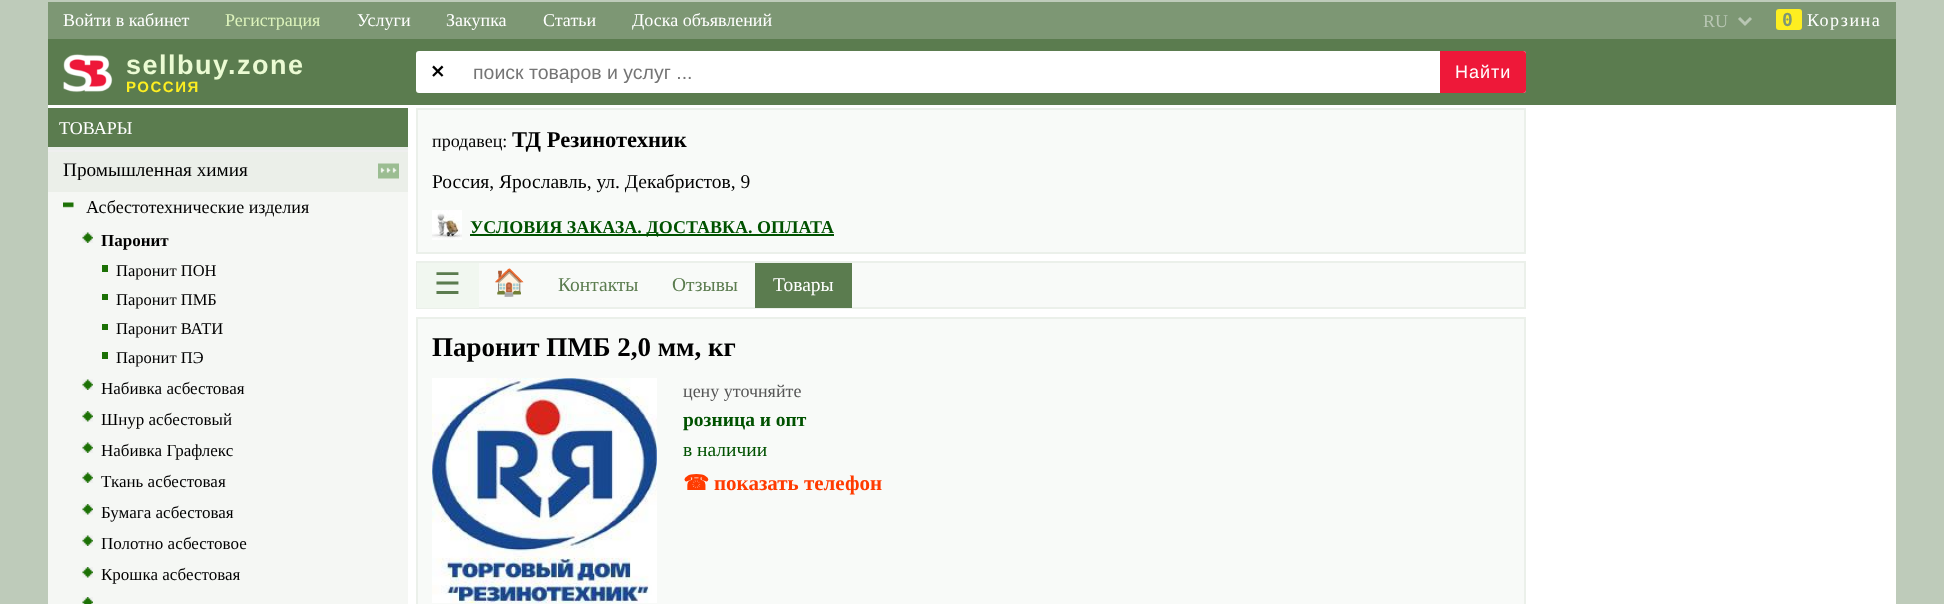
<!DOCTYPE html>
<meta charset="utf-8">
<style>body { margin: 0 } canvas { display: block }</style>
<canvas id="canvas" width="1944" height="604"></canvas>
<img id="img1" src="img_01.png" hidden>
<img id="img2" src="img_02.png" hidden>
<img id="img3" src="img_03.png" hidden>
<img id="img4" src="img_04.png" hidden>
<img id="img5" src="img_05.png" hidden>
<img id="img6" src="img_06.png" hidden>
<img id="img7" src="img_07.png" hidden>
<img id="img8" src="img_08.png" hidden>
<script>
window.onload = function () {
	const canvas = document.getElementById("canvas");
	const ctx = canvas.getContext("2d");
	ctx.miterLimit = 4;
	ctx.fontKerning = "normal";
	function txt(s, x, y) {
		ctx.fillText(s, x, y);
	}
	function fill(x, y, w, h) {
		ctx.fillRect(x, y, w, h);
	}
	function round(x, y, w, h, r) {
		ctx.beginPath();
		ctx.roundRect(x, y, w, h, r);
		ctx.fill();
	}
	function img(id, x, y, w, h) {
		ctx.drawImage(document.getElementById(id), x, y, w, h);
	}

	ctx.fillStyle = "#BECBBA";
	fill(0, 0, 1944, 604);
	ctx.fillStyle = "#7D9774";
	fill(48, 2, 1848, 37);
	ctx.beginPath();
	ctx.moveTo(1739, 18);
	ctx.lineTo(1745, 24);
	ctx.lineTo(1751, 18);
	ctx.strokeStyle = "#B8C6B3";
	ctx.lineWidth = 3;
	ctx.stroke();
	ctx.fillStyle = "#FDEE21";
	round(1776, 9, 26, 21, 3);
	ctx.fillStyle = "#5B7C4F";
	fill(48, 39, 1848, 66);
	img("img1", 63, 54, 50, 39);
	ctx.fillStyle = "#FFFFFF";
	round(416, 51, 1110, 42, 3);
	ctx.fillStyle = "#EE1839";
	ctx.beginPath();
	ctx.roundRect(1440, 51, 86, 42, [0, 3, 3, 0]);
	ctx.fill();
	ctx.fillStyle = "#FFFFFF";
	fill(48, 105, 1848, 499);
	ctx.fillStyle = "#5B7C4F";
	fill(48, 108, 360, 39);
	ctx.fillStyle = "#EBEFEA";
	fill(48, 147, 360, 3);
	ctx.fillStyle = "#EBEFE9";
	fill(48, 152, 360, 40);
	ctx.fillStyle = "#EFEFEF";
	fill(48, 150, 360, 2);
	img("img2", 378, 163, 21, 16);
	ctx.fillStyle = "#F5F7F4";
	fill(48, 192, 360, 412);
	img("img3", 63, 202, 11, 6);
	img("img4", 82, 232, 11, 11);
	ctx.fillStyle = "#1C7105";
	fill(102, 265, 6, 7);
	fill(102, 294, 6, 6);
	fill(102, 324, 6, 6);
	fill(102, 352, 6, 7);
	img("img4", 82, 379, 11, 11);
	img("img5", 82, 411, 11, 11);
	img("img4", 82, 442, 11, 11);
	img("img4", 82, 472, 11, 11);
	img("img5", 82, 504, 11, 11);
	img("img4", 82, 535, 11, 11);
	img("img5", 82, 567, 11, 11);
	img("img6", 82, 597, 11, 7);
	ctx.fillStyle = "#F8FAF8";
	ctx.beginPath();
	ctx.rect(417, 109, 1108, 144);
	ctx.fill();
	ctx.strokeStyle = "#EBF0EA";
	ctx.lineWidth = 2;
	ctx.stroke();
	img("img7", 432, 210, 30, 30);
	ctx.fillStyle = "#005200";
	fill(470, 234, 364, 2);
	ctx.fillStyle = "#F8FAF8";
	fill(479, 263, 1045, 44);
	ctx.strokeRect(417, 262, 1108, 46);
	ctx.fillStyle = "#F1F7F0";
	fill(417, 263, 62, 45);
	ctx.fillStyle = "#5B7C4F";
	fill(755, 263, 97, 45);
	ctx.fillStyle = "#F8FAF8";
	ctx.beginPath();
	ctx.rect(417, 318, 1108, 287);
	ctx.fill();
	ctx.stroke();
	img("img8", 432, 378, 225, 225);
	ctx.font = "18px Liberation Serif";
	ctx.fillStyle = "#FFFFFF";
	txt("Войти в кабинет", 63, 26);
	ctx.fillStyle = "#DDF3BC";
	txt("Регистрация", 225, 26);
	ctx.fillStyle = "#FFFFFF";
	txt("Услуги", 357, 26);
	txt("Закупка", 446, 26);
	txt("Статьи", 543, 26);
	txt("Доска объявлений", 632, 26);
	ctx.fillStyle = "#B8C6B3";
	txt("RU", 1703, 27);
	ctx.letterSpacing = "1.5px";
	ctx.font = "bold 18px DejaVu Sans Mono";
	ctx.fillStyle = "#7D9774";
	txt("0", 1782, 26);
	ctx.font = "18px Liberation Serif";
	ctx.fillStyle = "#FFFFFF";
	txt("Корзина", 1807, 26);
	ctx.font = "bold 27px Liberation Sans";
	ctx.fillStyle = "#EBFBD3";
	txt("sellbuy", 126, 74);
	txt(".zone", 228, 74);
	ctx.font = "bold 15px Liberation Sans";
	ctx.fillStyle = "#FDEE21";
	txt("РОССИЯ", 126, 92);
	ctx.letterSpacing = "0px";
	ctx.font = "bold 18px DejaVu Sans";
	ctx.fillStyle = "#000000";
	txt("✕", 430, 78);
	ctx.font = "19.5px Liberation Sans";
	ctx.fillStyle = "#757575";
	txt("поиск товаров и услуг ...", 473, 79);
	ctx.letterSpacing = "1px";
	ctx.font = "18px Liberation Sans";
	ctx.fillStyle = "#FFFFFF";
	txt("Найти", 1455, 78);
	ctx.letterSpacing = "0px";
	ctx.font = "18px Liberation Serif";
	txt("ТОВАРЫ", 59, 134);
	ctx.font = "19.25px Liberation Serif";
	ctx.fillStyle = "#000000";
	txt("Промышленная химия", 63, 176);
	ctx.font = "18px Liberation Serif";
	txt("Асбестотехнические изделия", 86, 213);
	ctx.font = "bold 17px Liberation Serif";
	txt("Паронит", 101, 246);
	ctx.font = "16.5px Liberation Serif";
	txt("Паронит ПОН", 116, 276);
	txt("Паронит ПМБ", 116, 305);
	txt("Паронит ВАТИ", 116, 334);
	txt("Паронит ПЭ", 116, 363);
	ctx.font = "17px Liberation Serif";
	txt("Набивка асбестовая", 101, 394);
	txt("Шнур асбестовый", 101, 425);
	txt("Набивка Графлекс", 101, 456);
	txt("Ткань асбестовая", 101, 487);
	txt("Бумага асбестовая", 101, 518);
	txt("Полотно асбестовое", 101, 549);
	txt("Крошка асбестовая", 101, 580);
	ctx.font = "18px Liberation Serif";
	txt("продавец:", 432, 147);
	ctx.font = "bold 22.5px Liberation Serif";
	txt("ТД Резинотехник", 512, 147);
	ctx.font = "19.5px Liberation Serif";
	txt("Россия, Ярославль, ул. Декабристов, 9", 432, 188);
	ctx.font = "bold 18px Liberation Serif";
	ctx.fillStyle = "#005200";
	txt("УСЛОВИЯ ЗАКАЗА. ДОСТАВКА. ОПЛАТА", 470, 233);
	ctx.font = "30px DejaVu Sans";
	ctx.fillStyle = "#5B7C4F";
	txt("☰", 434, 294);
	ctx.font = "26px Noto Color Emoji";
	txt("🏠", 493, 291);
	ctx.font = "19.5px Liberation Serif";
	txt("Контакты", 558, 291);
	txt("Отзывы", 672, 291);
	ctx.fillStyle = "#FFFFFF";
	txt("Товары", 773, 291);
	ctx.font = "bold 27px Liberation Serif";
	ctx.fillStyle = "#000000";
	txt("Паронит ПМБ 2,0 мм, кг", 432, 356);
	ctx.font = "18px Liberation Serif";
	ctx.fillStyle = "#555555";
	txt("цену уточняйте", 683, 397);
	ctx.font = "bold 19.5px Liberation Serif";
	ctx.fillStyle = "#005200";
	txt("розница и опт", 683, 426);
	ctx.font = "19.5px Liberation Serif";
	txt("в наличии", 683, 456);
	ctx.font = "bold 21px DejaVu Sans";
	ctx.fillStyle = "#FF3B00";
	txt("☎", 683, 490);
	ctx.font = "bold 21px Liberation Serif";
	txt("показать телефон", 714, 490);
};
</script>
